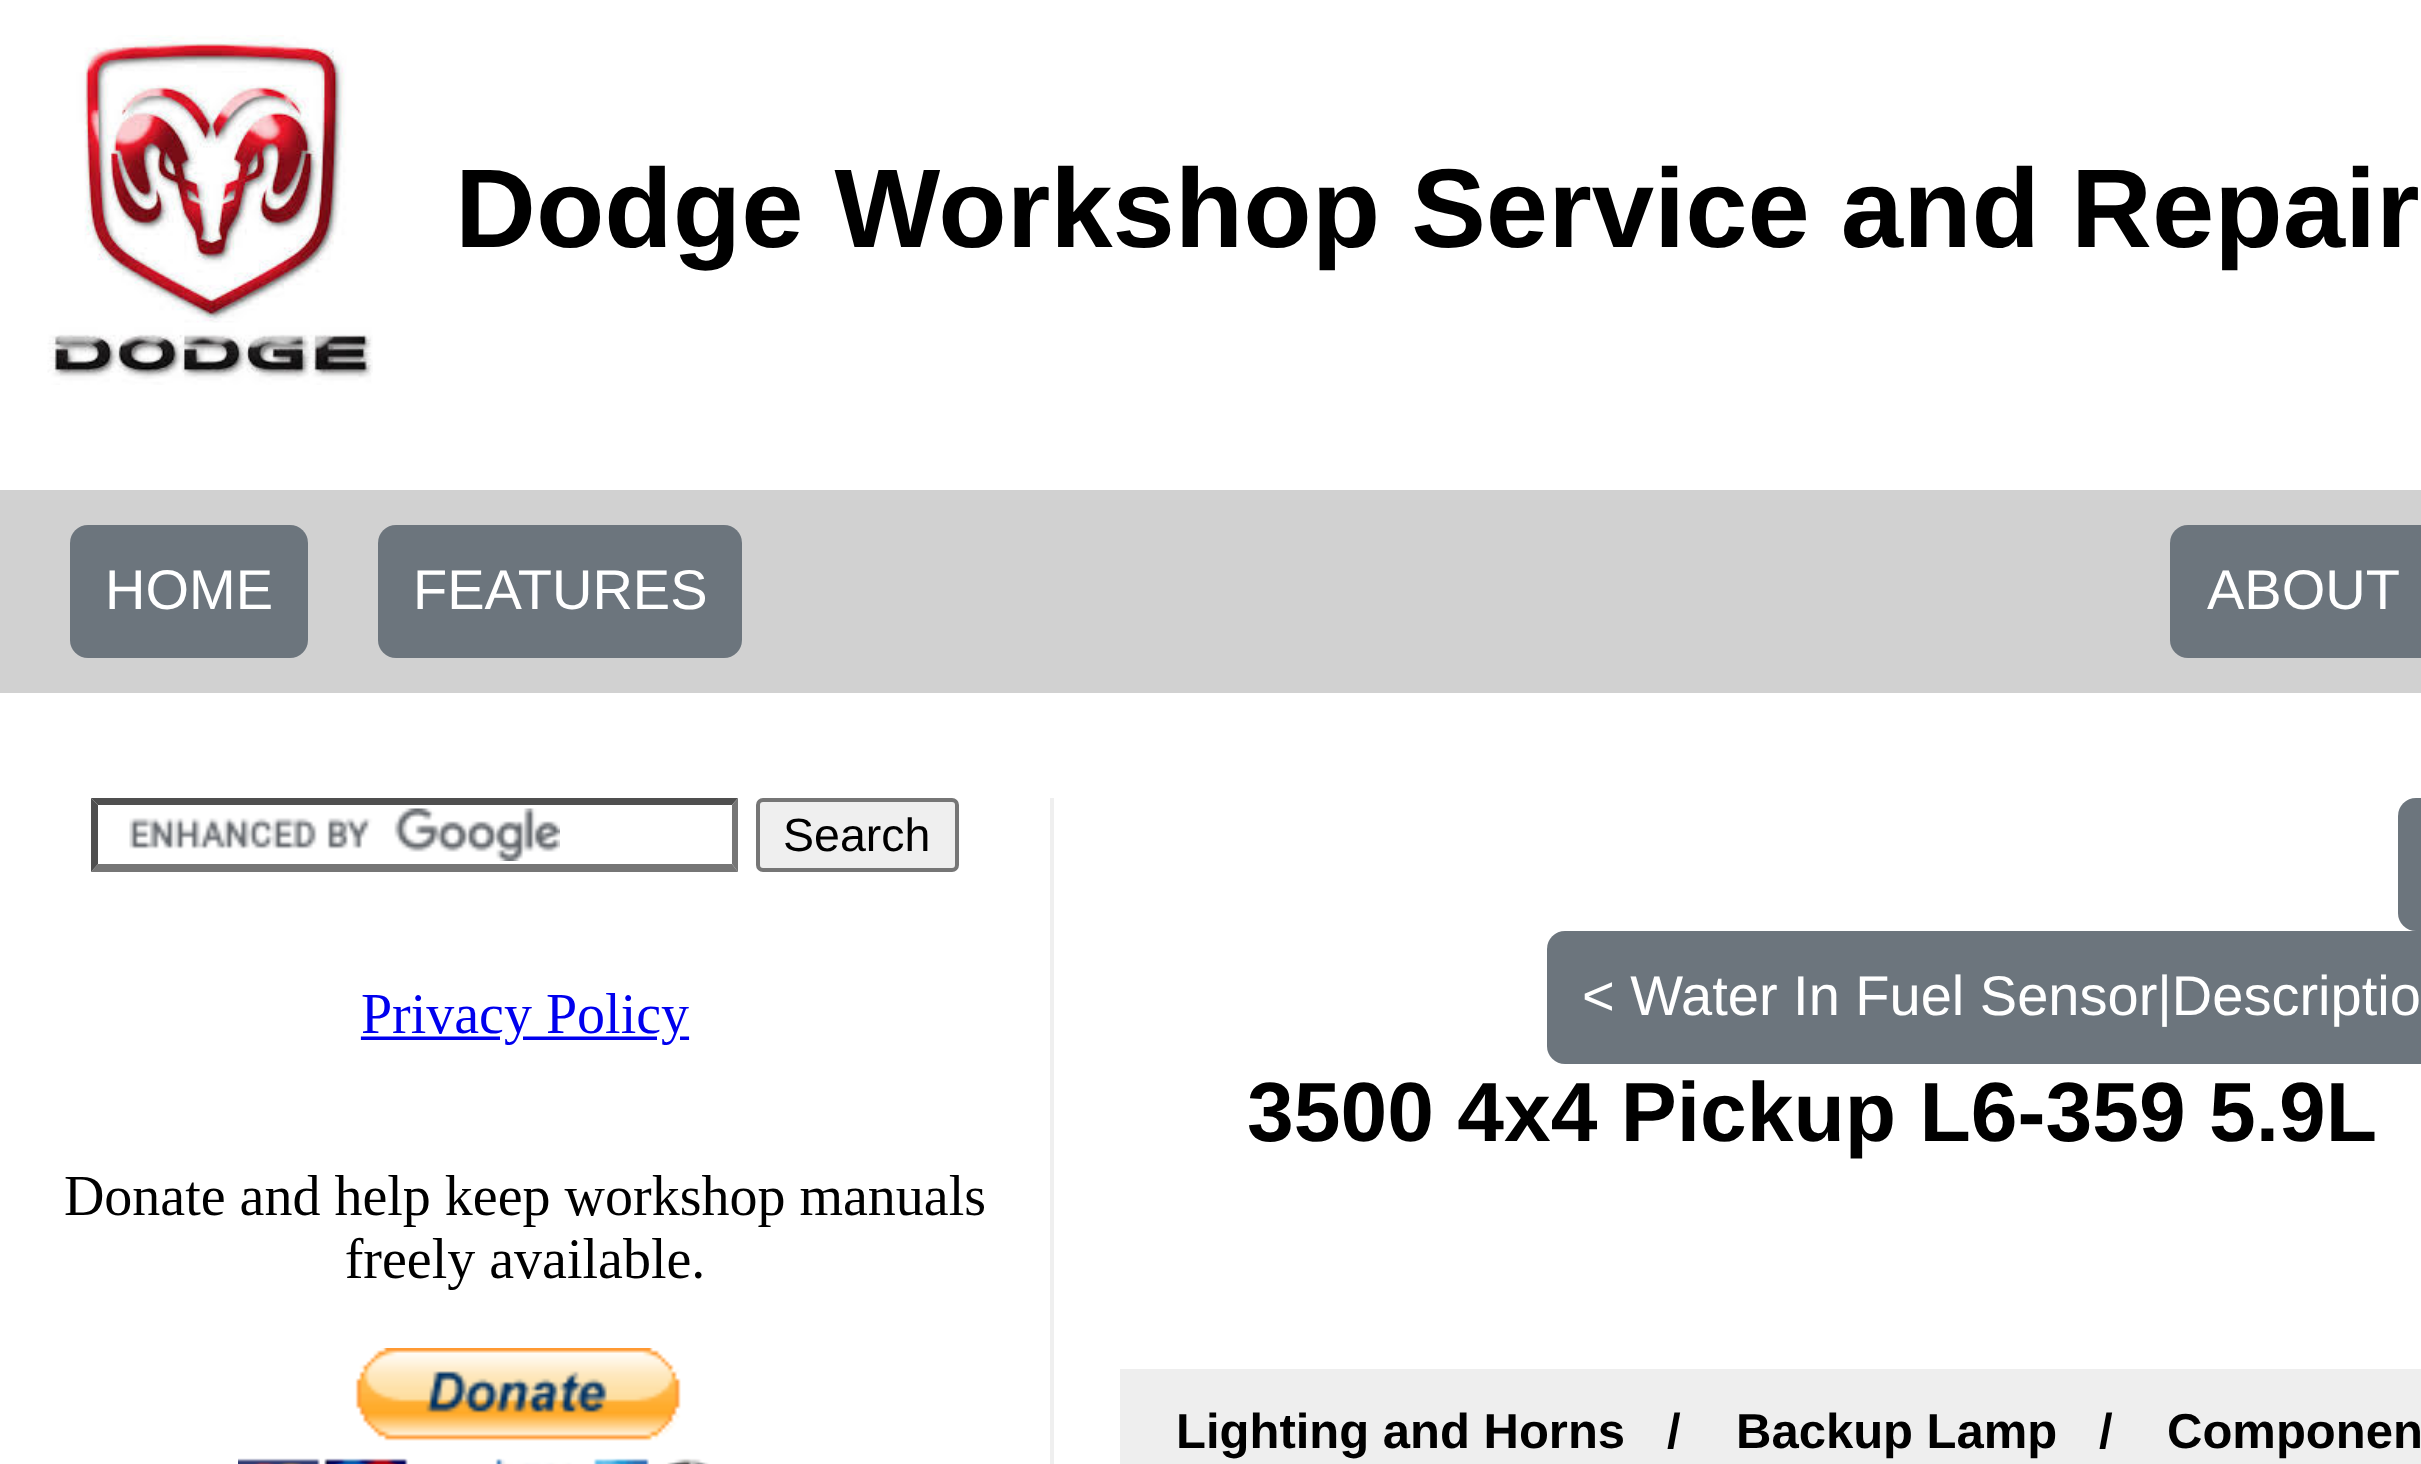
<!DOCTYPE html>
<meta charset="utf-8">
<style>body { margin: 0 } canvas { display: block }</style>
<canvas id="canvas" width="2421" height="1464"></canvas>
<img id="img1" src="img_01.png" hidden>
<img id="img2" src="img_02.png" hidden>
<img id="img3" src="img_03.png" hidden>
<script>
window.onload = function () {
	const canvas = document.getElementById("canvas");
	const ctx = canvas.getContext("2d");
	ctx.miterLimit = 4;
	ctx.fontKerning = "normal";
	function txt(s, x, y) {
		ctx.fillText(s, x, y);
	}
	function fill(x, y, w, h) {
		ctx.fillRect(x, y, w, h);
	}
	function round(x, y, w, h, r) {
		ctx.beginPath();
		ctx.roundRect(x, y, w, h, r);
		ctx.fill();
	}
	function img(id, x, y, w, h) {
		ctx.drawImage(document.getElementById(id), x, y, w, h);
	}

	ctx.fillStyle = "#FFFFFF";
	fill(0, 0, 2421, 1464);
	img("img1", 47, 35, 326, 350);
	ctx.fillStyle = "#D1D1D1";
	fill(0, 490, 2421, 203);
	ctx.fillStyle = "#6C757D";
	round(70, 525, 238, 133, 18);
	round(378, 525, 364, 133, 18);
	round(2170, 525, 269, 133, 18);
	ctx.fillStyle = "#EFEFEF";
	fill(1050, 798, 4, 666);
	img("img2", 129, 808, 431, 53);
	ctx.fillStyle = "#4F4F4F";
	ctx.beginPath();
	ctx.moveTo(91, 798);
	ctx.lineTo(738, 798);
	ctx.lineTo(732, 805);
	ctx.lineTo(98, 805);
	ctx.closePath();
	ctx.fill();
	ctx.fillStyle = "#767676";
	ctx.beginPath();
	ctx.moveTo(738, 798);
	ctx.lineTo(738, 872);
	ctx.lineTo(732, 864);
	ctx.lineTo(732, 805);
	ctx.closePath();
	ctx.fill();
	ctx.beginPath();
	ctx.moveTo(738, 872);
	ctx.lineTo(91, 872);
	ctx.lineTo(98, 864);
	ctx.lineTo(732, 864);
	ctx.closePath();
	ctx.fill();
	ctx.fillStyle = "#4F4F4F";
	ctx.beginPath();
	ctx.moveTo(91, 872);
	ctx.lineTo(91, 798);
	ctx.lineTo(98, 805);
	ctx.lineTo(98, 864);
	ctx.closePath();
	ctx.fill();
	ctx.fillStyle = "#EFEFEF";
	ctx.beginPath();
	ctx.roundRect(758, 800, 199, 70, 5);
	ctx.fill();
	ctx.strokeStyle = "#767676";
	ctx.lineWidth = 4;
	ctx.stroke();
	img("img3", 65, 993, 919, 471);
	ctx.fillStyle = "#6C757D";
	round(2398, 798, 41, 133, 18);
	round(1547, 931, 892, 133, 18);
	ctx.fillStyle = "#EEEEEE";
	fill(1120, 1369, 1301, 95);
	ctx.font = "bold 112px Liberation Sans";
	ctx.fillStyle = "#000000";
	txt("Dodge Workshop Service and Repair", 455, 247);
	ctx.font = "56px Liberation Sans";
	ctx.fillStyle = "#FFFFFF";
	txt("HOME", 105, 609);
	txt("FEATURES", 413, 609);
	txt("ABOUT", 2207, 609);
	ctx.font = "46.5px Liberation Sans";
	ctx.fillStyle = "#000000";
	txt("Search", 783, 851);
	ctx.font = "56px Liberation Sans";
	ctx.fillStyle = "#FFFFFF";
	txt("< Water In Fuel Sensor|Descriptio", 1582, 1015);
	ctx.font = "bold 84px Liberation Sans";
	ctx.fillStyle = "#000000";
	txt("3500 4x4 Pickup L6-359 5.9L", 1247, 1141);
	ctx.font = "bold 49px Liberation Sans";
	txt("Lighting and Horns", 1176, 1448);
	txt("/", 1667, 1448);
	txt("Backup Lamp", 1736, 1448);
	txt("/", 2099, 1448);
	txt("Componen", 2167, 1448);
};
</script>
